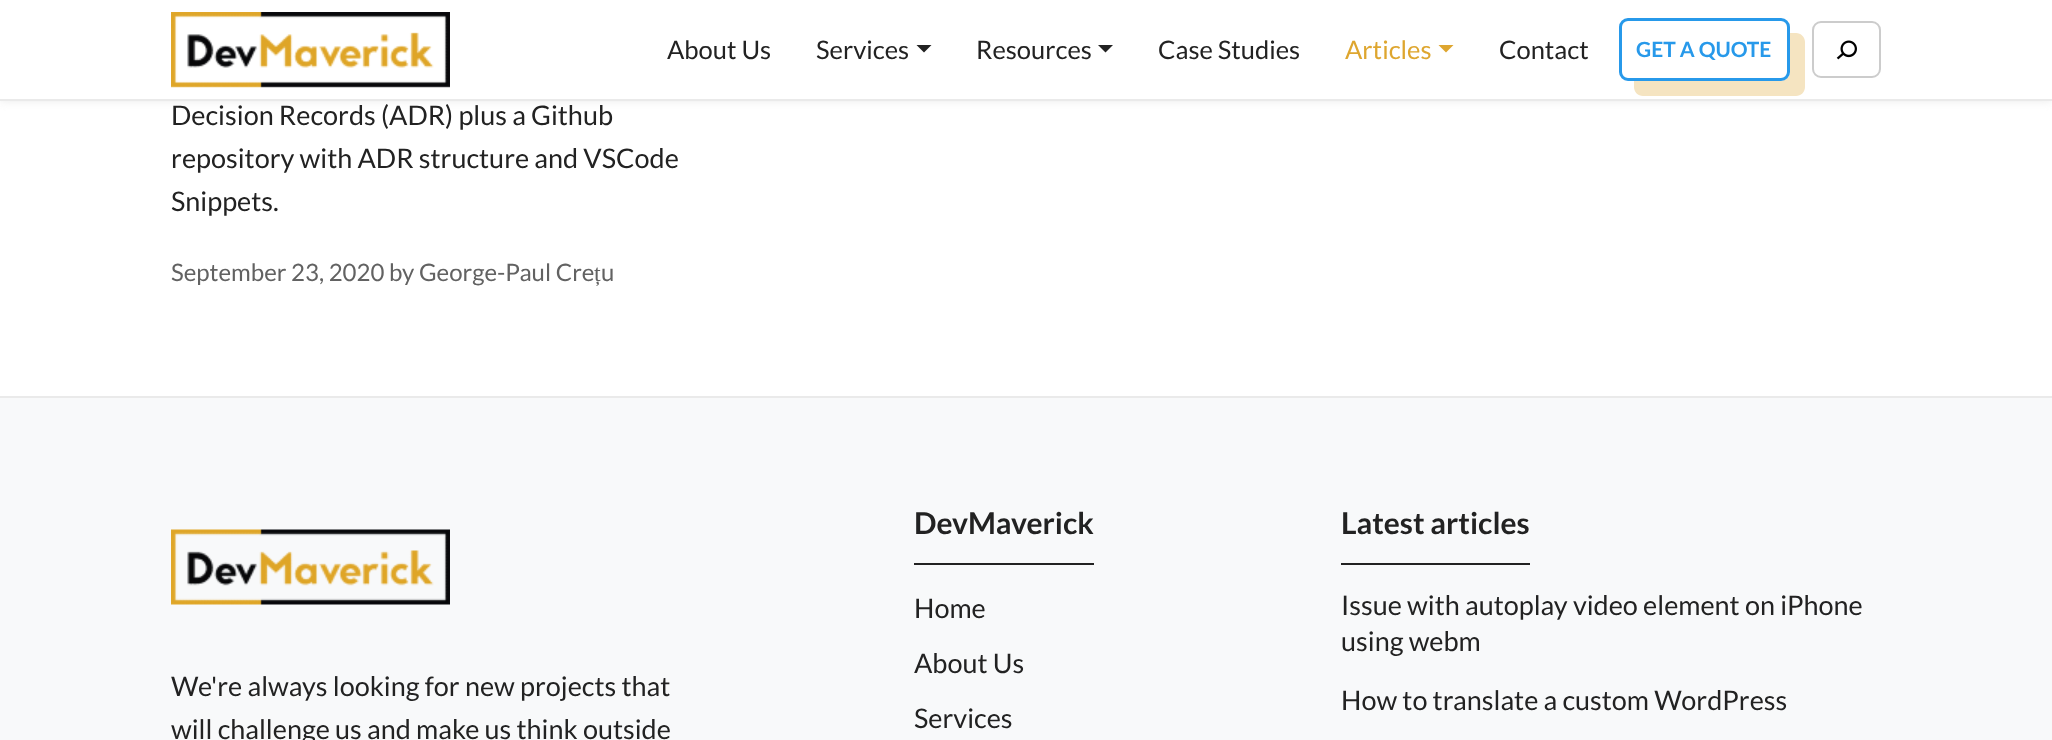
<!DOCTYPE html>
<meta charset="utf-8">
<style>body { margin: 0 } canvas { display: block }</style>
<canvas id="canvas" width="2052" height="740"></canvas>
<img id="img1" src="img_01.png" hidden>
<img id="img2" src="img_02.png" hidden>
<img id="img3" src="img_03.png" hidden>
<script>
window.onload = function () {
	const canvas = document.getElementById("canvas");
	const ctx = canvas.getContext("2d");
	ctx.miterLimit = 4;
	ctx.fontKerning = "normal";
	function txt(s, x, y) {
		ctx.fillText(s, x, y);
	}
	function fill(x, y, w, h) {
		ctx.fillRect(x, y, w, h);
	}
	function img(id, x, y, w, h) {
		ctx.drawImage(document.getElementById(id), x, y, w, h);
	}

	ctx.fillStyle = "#FFFFFF";
	fill(0, 0, 2052, 740);
	ctx.fillStyle = "#EAEAEA";
	ctx.filter = "blur(4.5px)";
	ctx.beginPath();
	ctx.rect(0, 0, 2052, 101);
	ctx.fill();
	ctx.filter = "none";
	ctx.fillStyle = "#FFFFFF";
	fill(0, 0, 2052, 99);
	ctx.fillStyle = "#EAEAEA";
	fill(0, 99, 2052, 2);
	img("img1", 171, 12, 279, 76);
	ctx.fillStyle = "#222222";
	ctx.beginPath();
	ctx.moveTo(916.5, 45);
	ctx.lineTo(931.5, 45);
	ctx.lineTo(924, 52.5);
	ctx.closePath();
	ctx.fill();
	ctx.beginPath();
	ctx.moveTo(1098, 45);
	ctx.lineTo(1113, 45);
	ctx.lineTo(1105.5, 52.5);
	ctx.closePath();
	ctx.fill();
	ctx.fillStyle = "#DEA62F";
	ctx.beginPath();
	ctx.moveTo(1438.5, 45);
	ctx.lineTo(1453.5, 45);
	ctx.lineTo(1446, 52.5);
	ctx.closePath();
	ctx.fill();
	ctx.fillStyle = "#F5E4C1";
	ctx.beginPath();
	ctx.moveTo(1634, 81);
	ctx.lineTo(1634, 87);
	ctx.bezierCurveTo(1634, 92, 1638, 96, 1643, 96);
	ctx.lineTo(1796, 96);
	ctx.bezierCurveTo(1801, 96, 1805, 92, 1805, 87);
	ctx.lineTo(1805, 42);
	ctx.bezierCurveTo(1805, 37, 1801, 33, 1796, 33);
	ctx.lineTo(1790, 33);
	ctx.lineTo(1790, 72);
	ctx.bezierCurveTo(1790, 77, 1785, 81, 1780, 81);
	ctx.closePath();
	ctx.fill();
	ctx.beginPath();
	ctx.roundRect(1620.5, 19.5, 168, 60, 7.5);
	ctx.strokeStyle = "#2799EA";
	ctx.lineWidth = 3;
	ctx.stroke();
	ctx.beginPath();
	ctx.roundRect(1813, 22, 67, 55, 8);
	ctx.strokeStyle = "#CCCCCC";
	ctx.lineWidth = 2;
	ctx.stroke();
	img("img2", 1836, 40, 21, 20);
	ctx.fillStyle = "#F8F9FA";
	fill(0, 398, 2052, 342);
	ctx.fillStyle = "#EAEAEA";
	fill(0, 396, 2052, 2);
	img("img3", 171, 529, 279, 76);
	ctx.fillStyle = "#222222";
	fill(914, 563, 180, 2);
	fill(1341, 563, 189, 2);
	ctx.font = "25.5px Lato";
	txt("About Us", 667, 59);
	txt("Services", 816, 59);
	txt("Resources", 976, 59);
	txt("Case Studies", 1158, 59);
	ctx.fillStyle = "#DEA62F";
	txt("Articles", 1345, 59);
	ctx.fillStyle = "#222222";
	txt("Contact", 1499, 59);
	ctx.font = "bold 21px Lato";
	ctx.fillStyle = "#2799EA";
	txt("GET A QUOTE", 1636, 57);
	ctx.font = "27px Lato";
	ctx.fillStyle = "#222222";
	txt("Decision Records (ADR) plus a Github", 171, 125);
	txt("repository with ADR structure and VSCode", 171, 168);
	txt("Snippets.", 171, 211);
	ctx.font = "24px Lato";
	ctx.fillStyle = "#626262";
	txt("September 23, 2020 by George-Paul Cre", 171, 281);
	ctx.font = "24px Liberation Serif";
	txt("ț", 594, 281);
	ctx.font = "24px Lato";
	txt("u", 601, 281);
	ctx.font = "27px Lato";
	ctx.fillStyle = "#222222";
	txt("We're always looking for new projects that", 171, 696);
	txt("will challenge us and make us think outside", 171, 739);
	ctx.font = "bold 30px Lato";
	txt("DevMaverick", 914, 534);
	ctx.font = "27px Lato";
	txt("Home", 914, 618);
	txt("About Us", 914, 673);
	txt("Services", 914, 728);
	ctx.font = "bold 30px Lato";
	txt("Latest articles", 1341, 534);
	ctx.font = "27px Lato";
	txt("Issue with autoplay video element on iPhone", 1341, 615);
	txt("using webm", 1341, 651);
	txt("How to translate a custom WordPress", 1341, 710);
};
</script>
